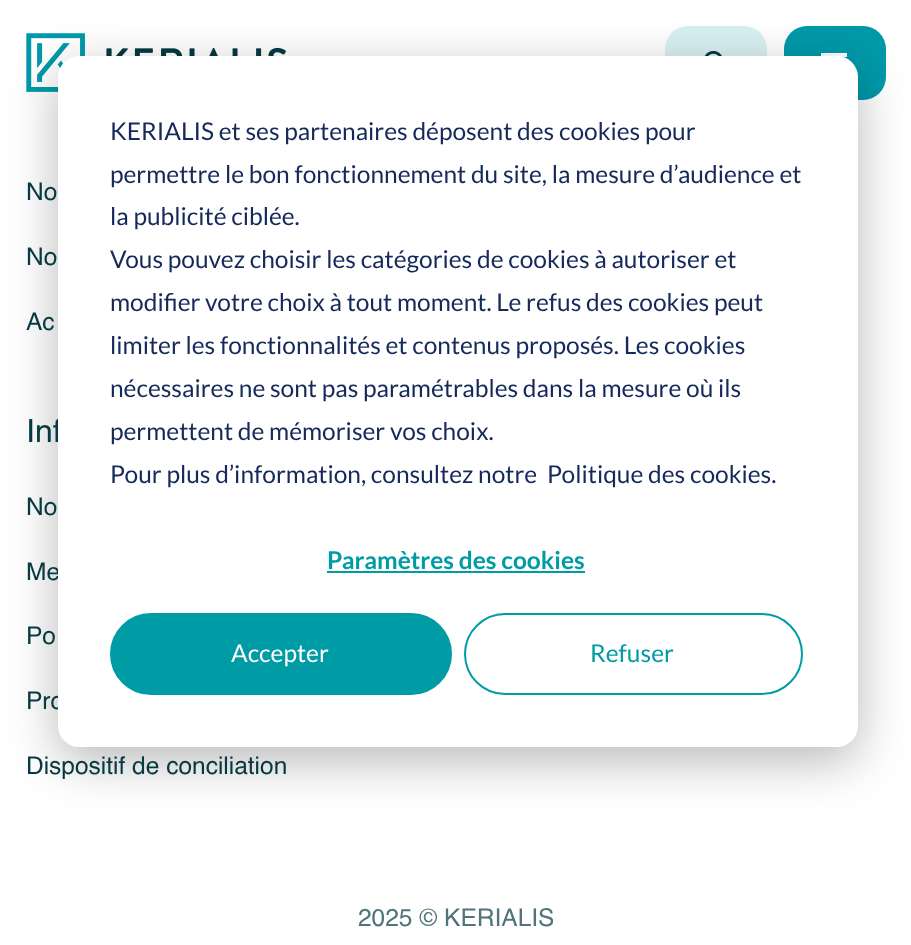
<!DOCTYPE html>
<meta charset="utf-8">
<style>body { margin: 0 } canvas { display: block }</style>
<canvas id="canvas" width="911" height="945"></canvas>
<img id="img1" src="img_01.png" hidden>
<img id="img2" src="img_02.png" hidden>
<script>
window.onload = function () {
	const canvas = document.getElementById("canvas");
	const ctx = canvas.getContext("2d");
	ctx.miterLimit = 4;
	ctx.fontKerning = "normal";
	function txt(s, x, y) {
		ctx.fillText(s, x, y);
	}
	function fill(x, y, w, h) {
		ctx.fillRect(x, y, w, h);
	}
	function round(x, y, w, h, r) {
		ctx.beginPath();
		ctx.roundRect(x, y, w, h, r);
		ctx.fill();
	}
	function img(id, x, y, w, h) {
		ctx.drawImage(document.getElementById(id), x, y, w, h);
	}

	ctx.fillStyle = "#FFFFFF";
	fill(0, 0, 911, 945);
	img("img1", 26, 33, 260, 59);
	ctx.fillStyle = "#D9F0F2";
	round(665, 26, 102, 74, 23);
	img("img2", 704, 50, 18, 6);
	ctx.fillStyle = "#0099AA";
	round(784, 26, 102, 74, 23);
	ctx.fillStyle = "#FFFFFF";
	fill(821, 53, 26, 4);
	ctx.fillStyle = "rgba(0, 0, 0, 0.28)";
	ctx.filter = "blur(24.5px)";
	ctx.beginPath();
	ctx.roundRect(58, 70, 800, 691, 21);
	ctx.fill();
	ctx.filter = "none";
	ctx.font = "24.5px Helvetica";
	ctx.fillStyle = "#063942";
	txt("No", 26, 200);
	txt("No", 26, 265);
	txt("Ac", 26, 330);
	ctx.font = "32px Helvetica";
	txt("Inf", 26, 442);
	ctx.font = "24.5px Helvetica";
	txt("No", 26, 515);
	txt("Me", 26, 580);
	txt("Po", 26, 644);
	txt("Pro", 26, 709);
	ctx.fillStyle = "#FFFFFF";
	round(58, 56, 800, 691, 21);
	ctx.beginPath();
	ctx.roundRect(465, 614, 337, 80, 40);
	ctx.strokeStyle = "#009CA6";
	ctx.lineWidth = 2;
	ctx.stroke();
	ctx.font = "24.5px Lato";
	ctx.fillStyle = "#009CA6";
	txt("Refuser", 590, 662);
	ctx.beginPath();
	ctx.roundRect(111, 614, 340, 80, 40);
	ctx.fill();
	ctx.stroke();
	ctx.fillStyle = "#FFFFFF";
	txt("Accepter", 231, 662);
	ctx.font = "bold 24.5px Lato";
	ctx.fillStyle = "#009CA6";
	txt("Paramètres des cookies", 327, 569);
	fill(327, 571, 258, 2);
	ctx.font = "24.5px Lato";
	ctx.fillStyle = "#15295A";
	txt("Politique des cookies.", 547, 483);
	txt("Pour plus d’information, consultez notre", 110, 483);
	txt("permettent de mémoriser vos choix.", 110, 440);
	txt("nécessaires ne sont pas paramétrables dans la mesure où ils", 110, 397);
	txt("limiter les fonctionnalités et contenus proposés. Les cookies", 110, 354);
	txt("modifier votre choix à tout moment. Le refus des cookies peut", 110, 311);
	txt("Vous pouvez choisir les catégories de cookies à autoriser et", 110, 268);
	txt("la publicité ciblée.", 110, 225);
	txt("permettre le bon fonctionnement du site, la mesure d’audience et", 110, 183);
	txt("KERIALIS et ses partenaires déposent des cookies pour", 110, 140);
	ctx.font = "24.5px Helvetica";
	ctx.fillStyle = "#063942";
	txt("Dispositif de conciliation", 26, 774);
	ctx.fillStyle = "#51747B";
	txt("2025 © KERIALIS", 358, 926);
};
</script>
